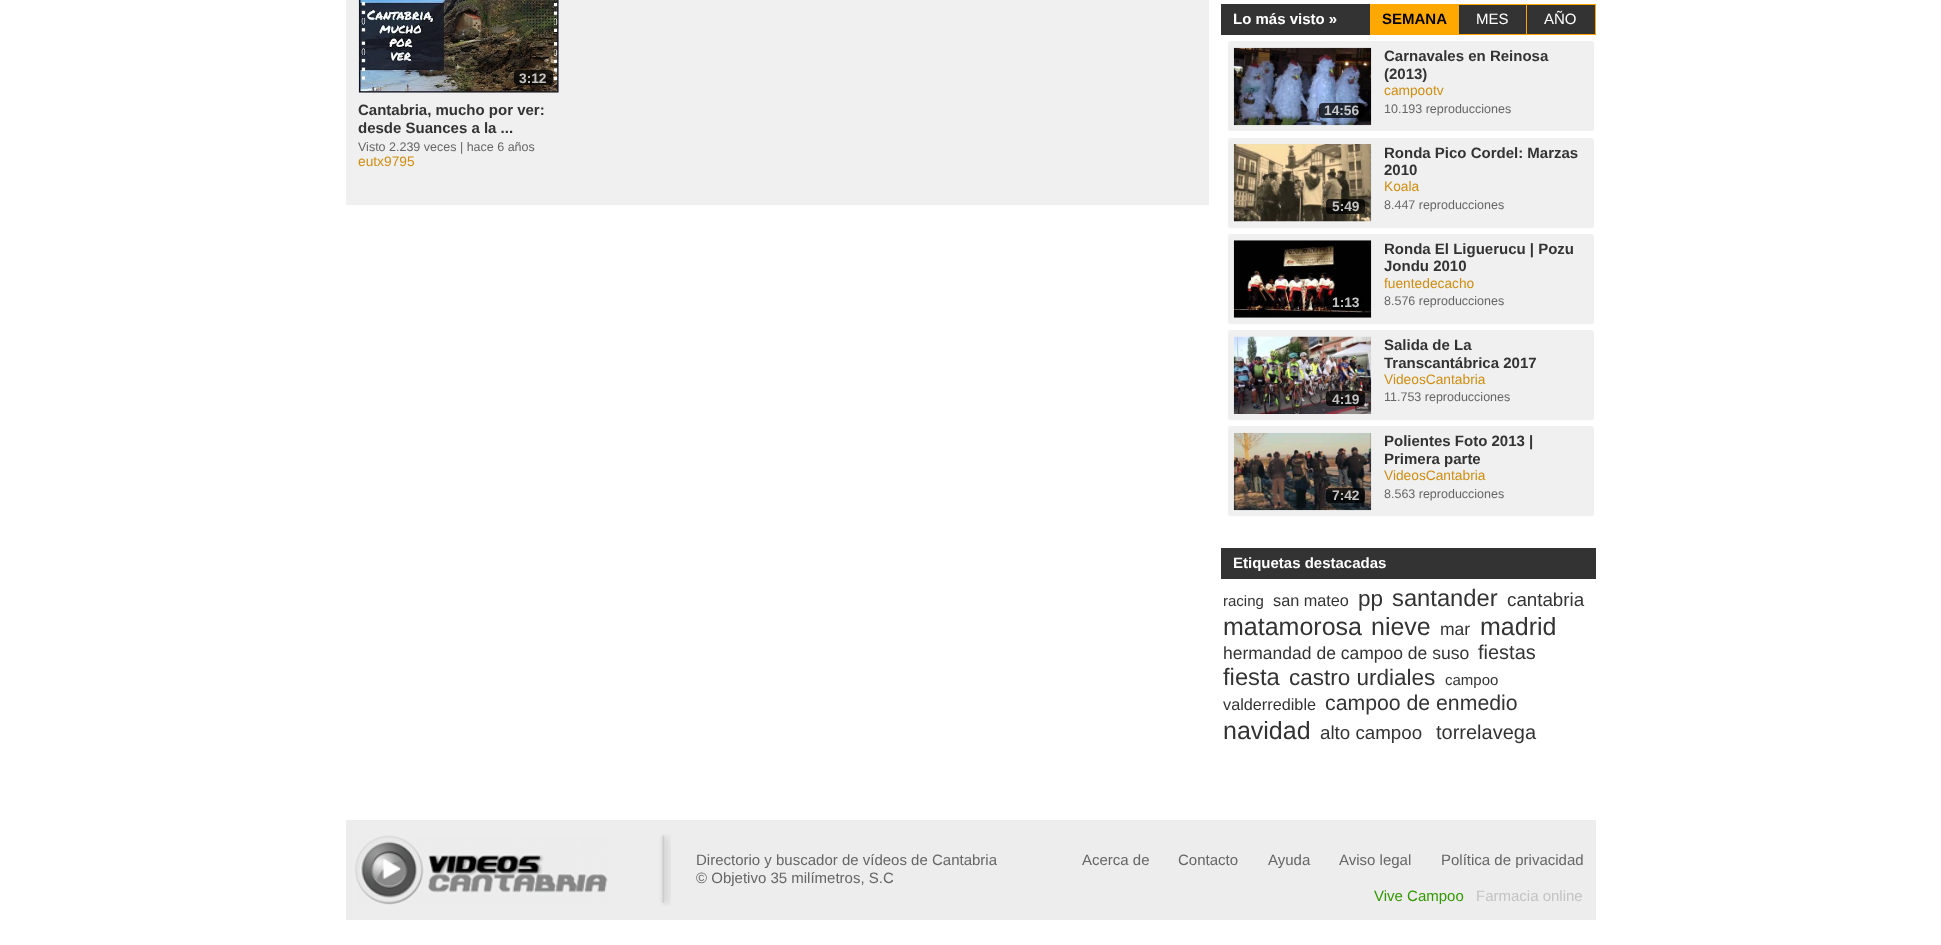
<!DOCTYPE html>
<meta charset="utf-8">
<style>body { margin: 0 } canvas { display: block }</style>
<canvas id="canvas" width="1941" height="945"></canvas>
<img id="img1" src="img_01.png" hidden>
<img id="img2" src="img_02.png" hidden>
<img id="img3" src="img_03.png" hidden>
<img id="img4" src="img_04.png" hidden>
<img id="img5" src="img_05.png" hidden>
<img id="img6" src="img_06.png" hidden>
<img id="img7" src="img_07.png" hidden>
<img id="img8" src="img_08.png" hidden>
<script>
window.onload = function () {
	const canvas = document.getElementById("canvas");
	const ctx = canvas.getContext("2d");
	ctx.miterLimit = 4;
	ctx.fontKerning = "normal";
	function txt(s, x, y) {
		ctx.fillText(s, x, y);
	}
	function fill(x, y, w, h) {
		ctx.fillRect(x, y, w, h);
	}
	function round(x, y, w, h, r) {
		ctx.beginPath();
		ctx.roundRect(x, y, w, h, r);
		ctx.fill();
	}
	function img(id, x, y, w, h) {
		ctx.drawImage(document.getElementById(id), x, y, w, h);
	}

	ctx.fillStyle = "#FFFFFF";
	fill(0, 0, 1941, 945);
	ctx.fillStyle = "#F0F0F0";
	fill(346, 0, 863, 205);
	img("img1", 358, 0, 201, 93);
	ctx.fillStyle = "rgba(0, 0, 0, 0.75)";
	round(514, 70, 39, 15, 4);
	ctx.fillStyle = "#333333";
	fill(1221, 4, 149, 31);
	ctx.fillStyle = "#FFA800";
	fill(1370, 4, 89, 31);
	ctx.fillStyle = "#333333";
	fill(1459, 5, 136, 29);
	ctx.fillStyle = "#FFA800";
	fill(1459, 4, 137, 1);
	fill(1526, 4, 1, 31);
	fill(1459, 34, 69, 1);
	fill(1595, 4, 1, 31);
	fill(1528, 34, 68, 1);
	ctx.fillStyle = "#F0F0F0";
	round(1228, 41, 366, 90, 2.5);
	img("img2", 1233, 47, 139, 79);
	ctx.fillStyle = "rgba(0, 0, 0, 0.75)";
	round(1319, 103, 46, 15, 4);
	ctx.fillStyle = "#F0F0F0";
	round(1228, 138, 366, 90, 2.5);
	img("img3", 1233, 144, 139, 78);
	ctx.fillStyle = "rgba(0, 0, 0, 0.75)";
	round(1326, 199, 39, 15, 4);
	ctx.fillStyle = "#F0F0F0";
	round(1228, 234, 366, 90, 2.5);
	img("img4", 1233, 240, 139, 78);
	ctx.fillStyle = "rgba(0, 0, 0, 0.75)";
	round(1326, 295, 39, 15, 4);
	ctx.fillStyle = "#F0F0F0";
	round(1228, 330, 366, 90, 2.5);
	img("img5", 1233, 336, 139, 78);
	ctx.fillStyle = "rgba(0, 0, 0, 0.75)";
	round(1326, 391, 39, 15, 4);
	ctx.fillStyle = "#F0F0F0";
	round(1228, 426, 366, 90, 2.5);
	img("img6", 1233, 432, 139, 79);
	ctx.fillStyle = "rgba(0, 0, 0, 0.75)";
	round(1326, 488, 39, 15, 4);
	ctx.fillStyle = "#333333";
	fill(1221, 548, 375, 31);
	ctx.fillStyle = "#EDEDED";
	fill(346, 820, 1250, 100);
	img("img7", 355, 835, 253, 70);
	img("img8", 659, 834, 12, 72);
	ctx.font = "bold 13.75px Liberation Sans";
	ctx.fillStyle = "#C3C3C3";
	txt("3:12", 519, 83);
	ctx.font = "bold 15px Liberation Sans";
	ctx.fillStyle = "#333333";
	txt("Cantabria, mucho por ver:", 358, 115);
	txt("desde Suances a la ...", 358, 133);
	ctx.font = "12.5px Liberation Sans";
	ctx.fillStyle = "#666666";
	txt("Visto 2.239 veces | hace 6 años", 358, 151);
	ctx.font = "13.75px Liberation Sans";
	ctx.fillStyle = "#CE8E12";
	txt("eutx9795", 358, 166);
	ctx.font = "bold 15px Liberation Sans";
	ctx.fillStyle = "#FFFFFF";
	txt("Lo más visto »", 1233, 24);
	ctx.fillStyle = "#000000";
	txt("SEMANA", 1382, 24);
	ctx.font = "15px Liberation Sans";
	ctx.fillStyle = "#FFFFFF";
	txt("MES", 1476, 24);
	txt("AÑO", 1544, 24);
	ctx.font = "bold 13.75px Liberation Sans";
	ctx.fillStyle = "#C6C8CA";
	txt("14:56", 1324, 115);
	ctx.font = "bold 15px Liberation Sans";
	ctx.fillStyle = "#333333";
	txt("Carnavales en Reinosa", 1384, 61);
	txt("(2013)", 1384, 79);
	ctx.font = "13.75px Liberation Sans";
	ctx.fillStyle = "#CE8E12";
	txt("campootv", 1384, 95);
	ctx.font = "12.5px Liberation Sans";
	ctx.fillStyle = "#666666";
	txt("10.193 reproducciones", 1384, 113);
	ctx.font = "bold 13.75px Liberation Sans";
	ctx.fillStyle = "#C3C3C3";
	txt("5:49", 1332, 211);
	ctx.font = "bold 15px Liberation Sans";
	ctx.fillStyle = "#333333";
	txt("Ronda Pico Cordel: Marzas", 1384, 158);
	txt("2010", 1384, 175);
	ctx.font = "13.75px Liberation Sans";
	ctx.fillStyle = "#CE8E12";
	txt("Koala", 1384, 191);
	ctx.font = "12.5px Liberation Sans";
	ctx.fillStyle = "#666666";
	txt("8.447 reproducciones", 1384, 209);
	ctx.font = "bold 13.75px Liberation Sans";
	ctx.fillStyle = "#C3C3C3";
	txt("1:13", 1332, 307);
	ctx.font = "bold 15px Liberation Sans";
	ctx.fillStyle = "#333333";
	txt("Ronda El Liguerucu | Pozu", 1384, 254);
	txt("Jondu 2010", 1384, 271);
	ctx.font = "13.75px Liberation Sans";
	ctx.fillStyle = "#CE8E12";
	txt("fuentedecacho", 1384, 288);
	ctx.font = "12.5px Liberation Sans";
	ctx.fillStyle = "#666666";
	txt("8.576 reproducciones", 1384, 305);
	ctx.font = "bold 13.75px Liberation Sans";
	ctx.fillStyle = "#C3C3C3";
	txt("4:19", 1332, 404);
	ctx.font = "bold 15px Liberation Sans";
	ctx.fillStyle = "#333333";
	txt("Salida de La", 1384, 350);
	txt("Transcantábrica 2017", 1384, 368);
	ctx.font = "13.75px Liberation Sans";
	ctx.fillStyle = "#CE8E12";
	txt("VideosCantabria", 1384, 384);
	ctx.font = "12.5px Liberation Sans";
	ctx.fillStyle = "#666666";
	txt("11.753 reproducciones", 1384, 401);
	ctx.font = "bold 13.75px Liberation Sans";
	ctx.fillStyle = "#C3C3C3";
	txt("7:42", 1332, 500);
	ctx.font = "bold 15px Liberation Sans";
	ctx.fillStyle = "#333333";
	txt("Polientes Foto 2013 |", 1384, 446);
	txt("Primera parte", 1384, 464);
	ctx.font = "13.75px Liberation Sans";
	ctx.fillStyle = "#CE8E12";
	txt("VideosCantabria", 1384, 480);
	ctx.font = "12.5px Liberation Sans";
	ctx.fillStyle = "#666666";
	txt("8.563 reproducciones", 1384, 498);
	ctx.font = "bold 15px Liberation Sans";
	ctx.fillStyle = "#FFFFFF";
	txt("Etiquetas destacadas", 1233, 568);
	ctx.font = "15px Liberation Sans";
	ctx.fillStyle = "#333333";
	txt("racing", 1223, 606);
	ctx.font = "16.25px Liberation Sans";
	txt("san mateo", 1273, 606);
	ctx.font = "22.5px Liberation Sans";
	txt("pp", 1358, 606);
	ctx.font = "23.75px Liberation Sans";
	txt("santander", 1392, 606);
	ctx.font = "18.75px Liberation Sans";
	txt("cantabria", 1507, 606);
	ctx.font = "25px Liberation Sans";
	txt("matamorosa", 1223, 635);
	txt("nieve", 1371, 635);
	ctx.font = "17.5px Liberation Sans";
	txt("mar", 1440, 635);
	ctx.font = "25px Liberation Sans";
	txt("madrid", 1480, 635);
	ctx.font = "17.5px Liberation Sans";
	txt("hermandad de campoo de suso", 1223, 659);
	ctx.font = "20px Liberation Sans";
	txt("fiestas", 1478, 659);
	ctx.font = "23.75px Liberation Sans";
	txt("fiesta", 1223, 685);
	ctx.font = "22.5px Liberation Sans";
	txt("castro urdiales", 1289, 685);
	ctx.font = "15px Liberation Sans";
	txt("campoo", 1445, 685);
	ctx.font = "16.25px Liberation Sans";
	txt("valderredible", 1223, 710);
	ctx.font = "21.25px Liberation Sans";
	txt("campoo de enmedio", 1325, 710);
	ctx.font = "25px Liberation Sans";
	txt("navidad", 1223, 739);
	ctx.font = "18.75px Liberation Sans";
	txt("alto campoo", 1320, 739);
	ctx.font = "20px Liberation Sans";
	txt("torrelavega", 1436, 739);
	ctx.font = "15px Liberation Sans";
	ctx.fillStyle = "#666666";
	txt("Directorio y buscador de vídeos de Cantabria", 696, 865);
	txt("© Objetivo 35 milímetros, S.C", 696, 883);
	txt("Acerca de", 1082, 865);
	txt("Contacto", 1178, 865);
	txt("Ayuda", 1268, 865);
	txt("Aviso legal", 1339, 865);
	txt("Política de privacidad", 1441, 865);
	ctx.fillStyle = "#329800";
	txt("Vive Campoo", 1374, 901);
	ctx.fillStyle = "#C3C3C3";
	txt("Farmacia online", 1476, 901);
};
</script>
